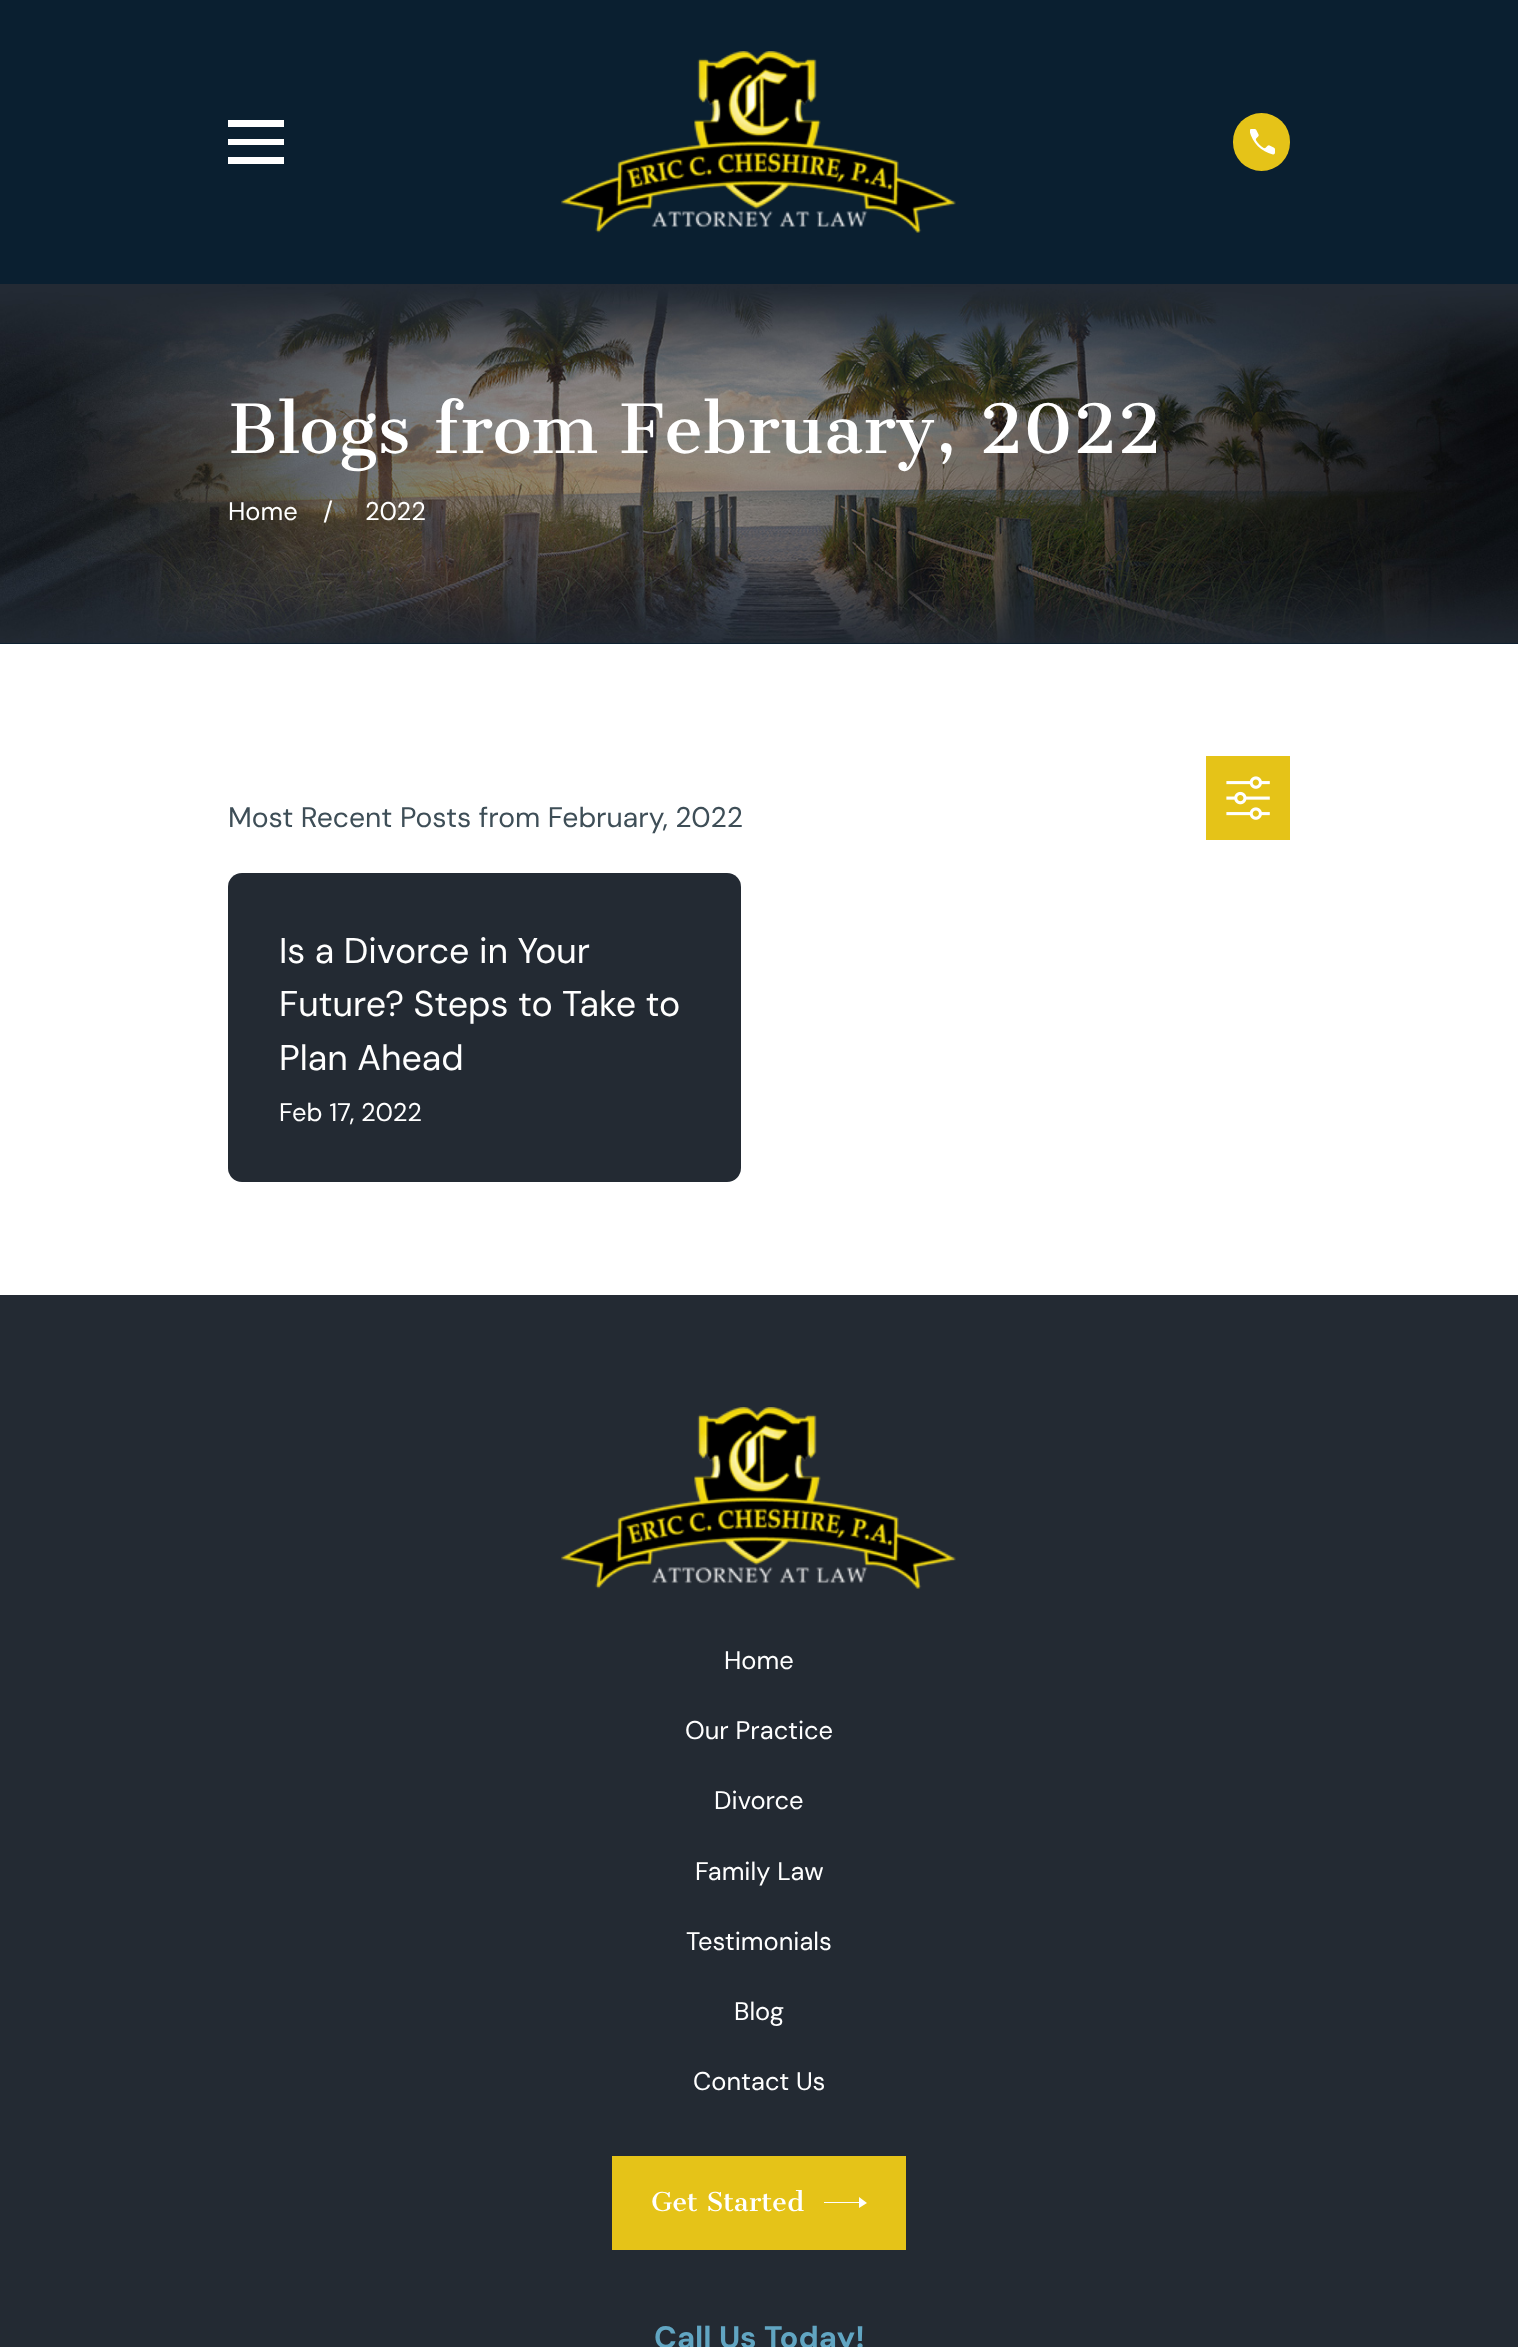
<!DOCTYPE html>
<meta charset="utf-8">
<style>body { margin: 0 } canvas { display: block }</style>
<canvas id="canvas" width="1518" height="2347"></canvas>
<img id="img1" src="img_01.png" hidden>
<img id="img2" src="img_02.png" hidden>
<img id="img3" src="img_03.png" hidden>
<img id="img4" src="img_04.png" hidden>
<img id="img5" src="img_05.png" hidden>
<script>
window.onload = function () {
	const canvas = document.getElementById("canvas");
	const ctx = canvas.getContext("2d");
	ctx.miterLimit = 4;
	ctx.fontKerning = "normal";
	function txt(s, x, y) {
		ctx.fillText(s, x, y);
	}
	function fill(x, y, w, h) {
		ctx.fillRect(x, y, w, h);
	}
	function round(x, y, w, h, r) {
		ctx.beginPath();
		ctx.roundRect(x, y, w, h, r);
		ctx.fill();
	}
	function img(id, x, y, w, h) {
		ctx.drawImage(document.getElementById(id), x, y, w, h);
	}

	ctx.fillStyle = "#FFFFFF";
	fill(0, 0, 1518, 2347);
	ctx.fillStyle = "#0A1F30";
	fill(0, 0, 1518, 284);
	ctx.fillStyle = "#FFFFFF";
	ctx.beginPath();
	ctx.moveTo(228, 120);
	ctx.lineTo(228, 127);
	ctx.lineTo(284, 127);
	ctx.lineTo(284, 120);
	ctx.closePath();
	ctx.moveTo(228, 139);
	ctx.lineTo(228, 145);
	ctx.lineTo(284, 145);
	ctx.lineTo(284, 139);
	ctx.closePath();
	ctx.moveTo(228, 157);
	ctx.lineTo(228, 164);
	ctx.lineTo(284, 164);
	ctx.lineTo(284, 157);
	ctx.closePath();
	ctx.fill();
	img("img1", 561, 51, 395, 182);
	ctx.fillStyle = "#E5C318";
	round(1233, 113, 57, 58, 28.5);
	img("img2", 1250, 129, 25, 26);
	ctx.fillStyle = "#0A1F30";
	fill(0, 643, 1518, 1);
	img("img3", 0, 284, 1518, 360);
	ctx.fillStyle = "#E5C318";
	fill(1206, 756, 84, 84);
	img("img4", 1226, 776, 44, 44);
	ctx.fillStyle = "#232A33";
	round(228, 873, 513, 309, 14);
	fill(0, 1295, 1518, 1052);
	img("img5", 561, 1407, 395, 182);
	ctx.fillStyle = "#E5C318";
	fill(612, 2156, 294, 94);
	ctx.fillStyle = "#FFFFFF";
	ctx.beginPath();
	ctx.moveTo(859, 2197);
	ctx.lineTo(859, 2202);
	ctx.lineTo(824, 2202);
	ctx.lineTo(824, 2203);
	ctx.lineTo(859, 2203);
	ctx.lineTo(859, 2208);
	ctx.lineTo(867, 2203);
	ctx.closePath();
	ctx.fill();
	ctx.font = "66.3px Cantata One";
	txt("Blogs from February, 2022", 228, 453);
	ctx.font = "25.5px DM Sans";
	txt("Home", 228, 520);
	txt("/", 323, 520);
	txt("2022", 365, 520);
	ctx.font = "28.3px DM Sans";
	ctx.fillStyle = "#3E4E57";
	txt("Most Recent Posts from February, 2022", 228, 827);
	ctx.font = "35.75px DM Sans";
	ctx.fillStyle = "#FFFFFF";
	txt("Is a Divorce in Your", 279, 963);
	txt("Future? Steps to Take to", 279, 1016);
	txt("Plan Ahead", 279, 1070);
	ctx.font = "25.5px DM Sans";
	txt("Feb 17, 2022", 279, 1121);
	txt("Home", 724, 1669);
	txt("Our Practice", 685, 1739);
	txt("Divorce", 714, 1809);
	txt("Family Law", 695, 1880);
	txt("Testimonials", 686, 1950);
	txt("Blog", 734, 2020);
	txt("Contact Us", 693, 2090);
	ctx.font = "25.5px Cantata One";
	txt("Get Started", 651, 2211);
	ctx.font = "bold 31px DM Sans";
	ctx.fillStyle = "#61A5C2";
	txt("Call Us Today!", 654, 2348);
};
</script>
